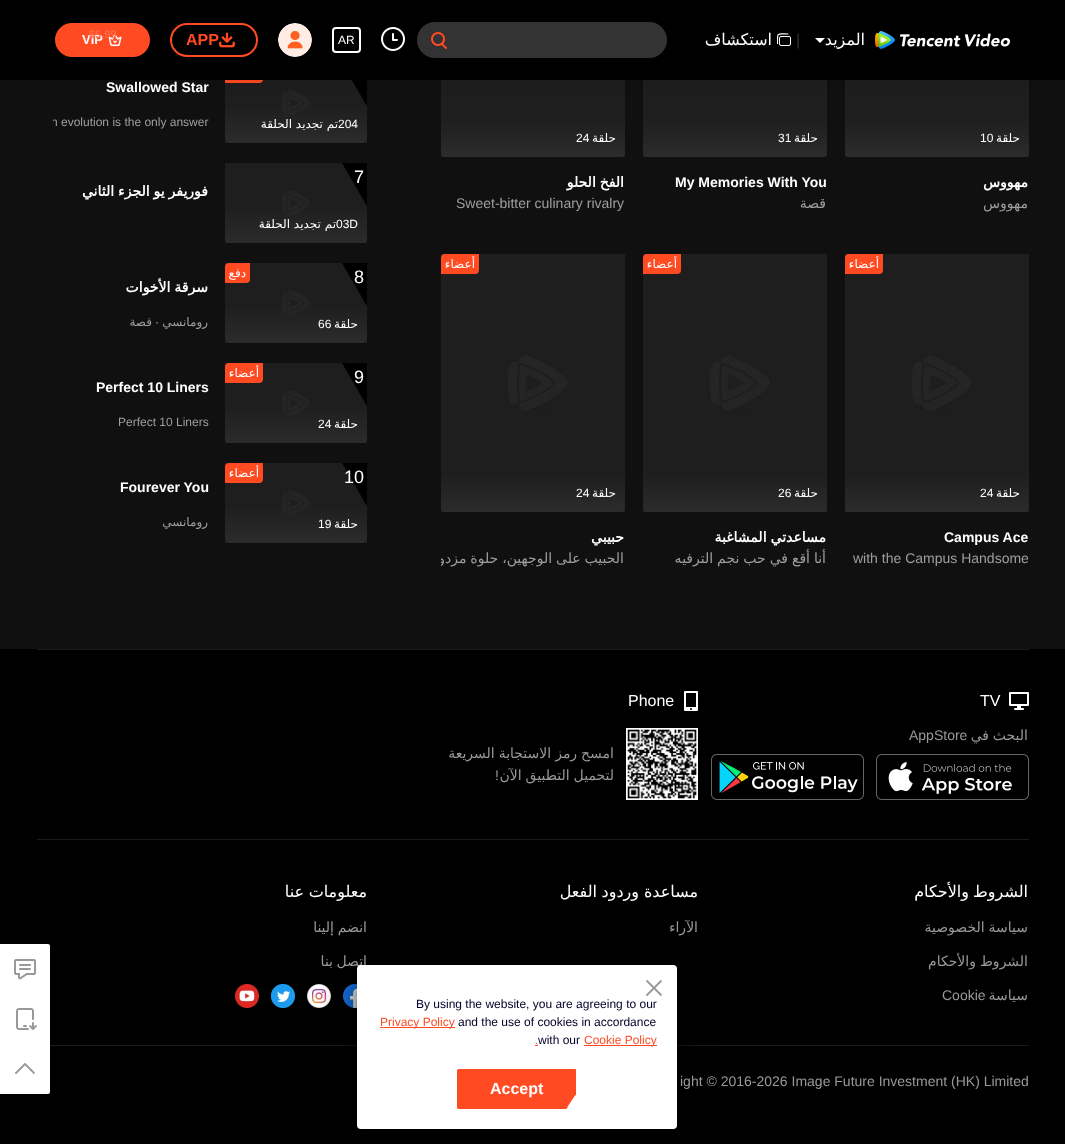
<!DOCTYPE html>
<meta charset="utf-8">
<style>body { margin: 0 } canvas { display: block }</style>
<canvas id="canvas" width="1065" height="1144"></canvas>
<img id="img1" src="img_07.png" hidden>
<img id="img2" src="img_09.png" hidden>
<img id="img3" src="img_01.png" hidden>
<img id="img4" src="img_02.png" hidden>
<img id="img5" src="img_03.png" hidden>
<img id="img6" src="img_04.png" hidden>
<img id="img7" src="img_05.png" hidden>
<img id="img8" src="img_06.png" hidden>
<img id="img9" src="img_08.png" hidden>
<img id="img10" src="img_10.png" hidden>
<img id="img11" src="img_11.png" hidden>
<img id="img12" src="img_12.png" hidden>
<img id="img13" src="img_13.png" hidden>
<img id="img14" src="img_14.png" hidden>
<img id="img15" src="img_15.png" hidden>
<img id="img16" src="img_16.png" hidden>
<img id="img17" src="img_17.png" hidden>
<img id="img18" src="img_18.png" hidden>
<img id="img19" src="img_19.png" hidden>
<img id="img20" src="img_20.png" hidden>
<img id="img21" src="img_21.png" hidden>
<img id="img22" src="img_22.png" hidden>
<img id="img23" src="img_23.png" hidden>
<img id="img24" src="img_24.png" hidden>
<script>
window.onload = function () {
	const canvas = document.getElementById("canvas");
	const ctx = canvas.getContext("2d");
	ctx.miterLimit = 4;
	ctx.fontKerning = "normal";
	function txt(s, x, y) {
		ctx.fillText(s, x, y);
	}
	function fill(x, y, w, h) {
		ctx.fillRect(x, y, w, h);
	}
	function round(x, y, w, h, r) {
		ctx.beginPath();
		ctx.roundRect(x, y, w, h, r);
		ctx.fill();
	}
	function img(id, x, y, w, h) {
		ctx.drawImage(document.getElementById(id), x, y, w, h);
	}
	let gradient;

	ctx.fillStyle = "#000000";
	fill(0, 0, 1065, 1144);
	ctx.fillStyle = "#101010";
	fill(0, 80, 1065, 569);
	img("img1", 225, 80, 142, 63);
	ctx.save();
	ctx.beginPath();
	ctx.rect(225, 63, 142, 80);
	ctx.clip();
	ctx.fillStyle = "#000000";
	ctx.beginPath();
	ctx.moveTo(342, 63);
	ctx.lineTo(342, 62);
	ctx.lineTo(368, 62);
	ctx.lineTo(368, 108);
	ctx.closePath();
	ctx.fill();
	ctx.restore();
	ctx.fillStyle = "#FF4A22";
	ctx.beginPath();
	ctx.roundRect(225, 63, 38, 20, [4, 0, 4, 0]);
	ctx.fill();
	img("img2", 441, 80, 184, 77);
	img("img2", 643, 80, 184, 77);
	img("img2", 845, 80, 184, 77);
	ctx.fillStyle = "rgba(0, 0, 0, 0.08)";
	ctx.filter = "blur(5.5px)";
	ctx.beginPath();
	ctx.rect(0, 1, 1065, 80);
	ctx.fill();
	ctx.filter = "none";
	ctx.fillStyle = "#000000";
	fill(225, 63, 38, 17);
	ctx.fillStyle = "#FF4A22";
	round(55, 23, 95, 34, 17);
	img("img3", 108, 34, 14, 13);
	ctx.beginPath();
	ctx.roundRect(171, 24, 86, 32, 16);
	ctx.strokeStyle = "#FF4A22";
	ctx.lineWidth = 2;
	ctx.stroke();
	img("img4", 219, 32, 16, 16);
	img("img5", 278, 23, 34, 34);
	ctx.beginPath();
	ctx.roundRect(333, 28, 27, 24, 3);
	ctx.strokeStyle = "#FFFFFF";
	ctx.stroke();
	img("img6", 381, 27, 24, 24);
	ctx.fillStyle = "#333333";
	round(417, 22, 250, 36, 18);
	img("img7", 431, 32, 16, 17);
	ctx.beginPath();
	ctx.roundRect(779.5, 36.5, 11, 9, 1.5);
	ctx.lineWidth = 1;
	ctx.stroke();
	ctx.save();
	ctx.beginPath();
	ctx.rect(777, 33, 14, 14);
	ctx.clip();
	ctx.beginPath();
	ctx.moveTo(788, 34);
	ctx.bezierCurveTo(776.5, 34, 777.5, 32, 777.5, 43.5);
	ctx.lineWidth = 1.2;
	ctx.lineCap = "round";
	ctx.stroke();
	ctx.restore();
	ctx.fillStyle = "#FFFFFF";
	ctx.beginPath();
	ctx.moveTo(815, 38);
	ctx.lineTo(825, 38);
	ctx.lineTo(820, 43);
	ctx.closePath();
	ctx.fill();
	img("img8", 875, 31, 135, 18);
	gradient = ctx.createLinearGradient(296, 143, 296, 105);
	gradient.addColorStop(0, "rgba(45, 45, 45, 0.9)");
	gradient.addColorStop(1, "rgba(45, 45, 45, 0)");
	ctx.fillStyle = gradient;
	ctx.beginPath();
	ctx.roundRect(225, 105, 142, 38, [0, 0, 4, 4]);
	ctx.fill();
	img("img9", 225, 163, 142, 80);
	ctx.save();
	ctx.beginPath();
	ctx.rect(225, 163, 142, 80);
	ctx.clip();
	ctx.fillStyle = "#000000";
	ctx.beginPath();
	ctx.moveTo(342, 163);
	ctx.lineTo(342, 162);
	ctx.lineTo(368, 162);
	ctx.lineTo(368, 208);
	ctx.closePath();
	ctx.fill();
	ctx.restore();
	gradient = ctx.createLinearGradient(296, 243, 296, 205);
	gradient.addColorStop(0, "rgba(45, 45, 45, 0.9)");
	gradient.addColorStop(1, "rgba(45, 45, 45, 0)");
	ctx.fillStyle = gradient;
	ctx.beginPath();
	ctx.roundRect(225, 205, 142, 38, [0, 0, 4, 4]);
	ctx.fill();
	img("img9", 225, 263, 142, 80);
	ctx.fillStyle = "#FF4A22";
	ctx.beginPath();
	ctx.roundRect(225, 263, 25, 20, [4, 0, 4, 0]);
	ctx.fill();
	ctx.save();
	ctx.beginPath();
	ctx.rect(225, 263, 142, 80);
	ctx.clip();
	ctx.fillStyle = "#000000";
	ctx.beginPath();
	ctx.moveTo(342, 263);
	ctx.lineTo(342, 262);
	ctx.lineTo(368, 262);
	ctx.lineTo(368, 308);
	ctx.closePath();
	ctx.fill();
	ctx.restore();
	gradient = ctx.createLinearGradient(296, 343, 296, 305);
	gradient.addColorStop(0, "rgba(45, 45, 45, 0.9)");
	gradient.addColorStop(1, "rgba(45, 45, 45, 0)");
	ctx.fillStyle = gradient;
	ctx.beginPath();
	ctx.roundRect(225, 305, 142, 38, [0, 0, 4, 4]);
	ctx.fill();
	img("img9", 225, 363, 142, 80);
	ctx.fillStyle = "#FF4A22";
	ctx.beginPath();
	ctx.roundRect(225, 363, 38, 20, [4, 0, 4, 0]);
	ctx.fill();
	ctx.save();
	ctx.beginPath();
	ctx.rect(225, 363, 142, 80);
	ctx.clip();
	ctx.fillStyle = "#000000";
	ctx.beginPath();
	ctx.moveTo(342, 363);
	ctx.lineTo(342, 362);
	ctx.lineTo(368, 362);
	ctx.lineTo(368, 408);
	ctx.closePath();
	ctx.fill();
	ctx.restore();
	gradient = ctx.createLinearGradient(296, 443, 296, 405);
	gradient.addColorStop(0, "rgba(45, 45, 45, 0.9)");
	gradient.addColorStop(1, "rgba(45, 45, 45, 0)");
	ctx.fillStyle = gradient;
	ctx.beginPath();
	ctx.roundRect(225, 405, 142, 38, [0, 0, 4, 4]);
	ctx.fill();
	img("img9", 225, 463, 142, 80);
	ctx.fillStyle = "#FF4A22";
	ctx.beginPath();
	ctx.roundRect(225, 463, 38, 20, [4, 0, 4, 0]);
	ctx.fill();
	ctx.save();
	ctx.beginPath();
	ctx.rect(225, 463, 142, 80);
	ctx.clip();
	ctx.fillStyle = "#000000";
	ctx.beginPath();
	ctx.moveTo(342, 463);
	ctx.lineTo(342, 462);
	ctx.lineTo(368, 462);
	ctx.lineTo(368, 508);
	ctx.closePath();
	ctx.fill();
	ctx.restore();
	gradient = ctx.createLinearGradient(296, 543, 296, 505);
	gradient.addColorStop(0, "rgba(45, 45, 45, 0.9)");
	gradient.addColorStop(1, "rgba(45, 45, 45, 0)");
	ctx.fillStyle = gradient;
	ctx.beginPath();
	ctx.roundRect(225, 505, 142, 38, [0, 0, 4, 4]);
	ctx.fill();
	gradient = ctx.createLinearGradient(533, 157, 533, 119);
	gradient.addColorStop(0, "#2C2C2C");
	gradient.addColorStop(1, "#1E1E1E");
	ctx.fillStyle = gradient;
	ctx.beginPath();
	ctx.roundRect(441, 119, 184, 38, [0, 0, 4, 4]);
	ctx.fill();
	gradient = ctx.createLinearGradient(735, 157, 735, 119);
	gradient.addColorStop(0, "#2C2C2C");
	gradient.addColorStop(1, "#1E1E1E");
	ctx.fillStyle = gradient;
	ctx.beginPath();
	ctx.roundRect(643, 119, 184, 38, [0, 0, 4, 4]);
	ctx.fill();
	gradient = ctx.createLinearGradient(937, 157, 937, 119);
	gradient.addColorStop(0, "#2C2C2C");
	gradient.addColorStop(1, "#1E1E1E");
	ctx.fillStyle = gradient;
	ctx.beginPath();
	ctx.roundRect(845, 119, 184, 38, [0, 0, 4, 4]);
	ctx.fill();
	img("img10", 441, 254, 184, 258);
	ctx.fillStyle = "#FF4A22";
	ctx.beginPath();
	ctx.roundRect(441, 254, 38, 20, [4, 0, 4, 0]);
	ctx.fill();
	gradient = ctx.createLinearGradient(533, 512, 533, 474);
	gradient.addColorStop(0, "#2C2C2C");
	gradient.addColorStop(1, "#1E1E1E");
	ctx.fillStyle = gradient;
	ctx.beginPath();
	ctx.roundRect(441, 474, 184, 38, [0, 0, 4, 4]);
	ctx.fill();
	img("img11", 643, 254, 184, 258);
	ctx.fillStyle = "#FF4A22";
	ctx.beginPath();
	ctx.roundRect(643, 254, 38, 20, [4, 0, 4, 0]);
	ctx.fill();
	gradient = ctx.createLinearGradient(735, 512, 735, 474);
	gradient.addColorStop(0, "#2C2C2C");
	gradient.addColorStop(1, "#1E1E1E");
	ctx.fillStyle = gradient;
	ctx.beginPath();
	ctx.roundRect(643, 474, 184, 38, [0, 0, 4, 4]);
	ctx.fill();
	img("img11", 845, 254, 184, 258);
	ctx.fillStyle = "#FF4A22";
	ctx.beginPath();
	ctx.roundRect(845, 254, 38, 20, [4, 0, 4, 0]);
	ctx.fill();
	gradient = ctx.createLinearGradient(937, 512, 937, 474);
	gradient.addColorStop(0, "#2C2C2C");
	gradient.addColorStop(1, "#1E1E1E");
	ctx.fillStyle = gradient;
	ctx.beginPath();
	ctx.roundRect(845, 474, 184, 38, [0, 0, 4, 4]);
	ctx.fill();
	ctx.fillStyle = "#FFFFFF";
	ctx.beginPath();
	ctx.roundRect(0, 944, 50, 150, [0, 2, 2, 0]);
	ctx.fill();
	img("img12", 14, 959, 22, 21);
	img("img13", 16, 1008, 21, 22);
	img("img14", 15, 1063, 20, 11);
	ctx.fillStyle = "#1A1A1A";
	fill(37, 649, 992, 1);
	img("img15", 684, 691, 14, 20);
	img("img16", 626, 728, 72, 72);
	img("img17", 1009, 692, 20, 18);
	img("img18", 711, 754, 153, 46);
	img("img19", 876, 754, 153, 46);
	fill(37, 839, 992, 1);
	img("img20", 235, 984, 24, 24);
	img("img21", 271, 984, 24, 24);
	img("img22", 307, 984, 24, 24);
	img("img23", 343, 984, 14, 24);
	fill(50, 1045, 979, 1);
	ctx.fillStyle = "rgba(0, 0, 0, 0.8)";
	ctx.filter = "blur(18px)";
	ctx.beginPath();
	ctx.roundRect(357, 973, 320, 164, 4);
	ctx.fill();
	ctx.filter = "none";
	ctx.font = "bold 13px Liberation Sans";
	ctx.fillStyle = "#FFFFFF";
	txt("VIP", 82, 44);
	ctx.font = "bold 11px Liberation Sans";
	ctx.fillStyle = "#FF6A49";
	txt("$5.99", 89, 38);
	ctx.font = "bold 16px Liberation Sans";
	ctx.fillStyle = "#FF4A22";
	txt("APP", 186, 45);
	ctx.font = "12px Liberation Sans";
	ctx.fillStyle = "#FFFFFF";
	txt("AR", 338, 44);
	ctx.direction = "rtl";
	ctx.font = "16px DejaVu Sans";
	txt("استكشاف", 772, 45);
	ctx.direction = "ltr";
	ctx.font = "16px Liberation Sans";
	ctx.fillStyle = "#333333";
	txt("|", 796, 45);
	ctx.direction = "rtl";
	ctx.font = "16px DejaVu Sans";
	ctx.fillStyle = "#FFFFFF";
	txt("المزيد", 865, 45);
	ctx.direction = "ltr";
	ctx.font = "bold 14px Liberation Sans";
	txt("Swallowed Star", 106, 92);
	ctx.save();
	ctx.beginPath();
	ctx.rect(53, 114, 156, 16);
	ctx.clip();
	ctx.font = "12px Liberation Sans";
	ctx.fillStyle = "#9F9F9F";
	txt("n evolution is the only answer", 51, 126);
	ctx.restore();
	ctx.direction = "rtl";
	ctx.font = "12px DejaVu Sans";
	txt("تم تجديد الحلقة", 338, 128);
	ctx.direction = "ltr";
	ctx.font = "12px Liberation Sans";
	txt("204", 338, 128);
	ctx.wordSpacing = "-0.5px";
	ctx.direction = "rtl";
	ctx.font = "bold 14px DejaVu Sans";
	txt("فوريفر يو الجزء الثاني", 208, 196);
	ctx.wordSpacing = "0px";
	ctx.direction = "ltr";
	ctx.font = "18px Liberation Sans";
	txt("7", 354, 183);
	ctx.direction = "rtl";
	ctx.font = "12px DejaVu Sans";
	txt("تم تجديد الحلقة", 336, 228);
	ctx.direction = "ltr";
	ctx.font = "12px Liberation Sans";
	txt("03D", 336, 228);
	ctx.wordSpacing = "-0.5px";
	ctx.direction = "rtl";
	ctx.font = "bold 14px DejaVu Sans";
	txt("سرقة الأخوات", 208, 292);
	ctx.wordSpacing = "0px";
	ctx.font = "12px DejaVu Sans";
	ctx.fillStyle = "#9F9F9F";
	txt("قصة", 152, 326);
	ctx.font = "12px Liberation Sans";
	txt("·", 159, 326);
	ctx.font = "12px DejaVu Sans";
	txt("رومانسي", 208, 326);
	ctx.fillStyle = "#FFFFFF";
	txt("دفع", 246, 277);
	ctx.direction = "ltr";
	ctx.font = "12px Liberation Sans";
	txt("66", 318, 328);
	ctx.direction = "rtl";
	ctx.font = "12px DejaVu Sans";
	txt("حلقة", 358, 328);
	ctx.direction = "ltr";
	ctx.font = "18px Liberation Sans";
	txt("8", 354, 283);
	ctx.font = "bold 14px Liberation Sans";
	txt("Perfect 10 Liners", 96, 392);
	ctx.font = "12px Liberation Sans";
	ctx.fillStyle = "#9F9F9F";
	txt("Perfect 10 Liners", 118, 426);
	ctx.direction = "rtl";
	ctx.font = "12px DejaVu Sans";
	ctx.fillStyle = "#FFFFFF";
	txt("أعضاء", 259, 377);
	ctx.direction = "ltr";
	ctx.font = "12px Liberation Sans";
	txt("24", 318, 428);
	ctx.direction = "rtl";
	ctx.font = "12px DejaVu Sans";
	txt("حلقة", 358, 428);
	ctx.direction = "ltr";
	ctx.font = "18px Liberation Sans";
	txt("9", 354, 383);
	ctx.font = "bold 14px Liberation Sans";
	txt("Fourever You", 120, 492);
	ctx.direction = "rtl";
	ctx.font = "12px DejaVu Sans";
	ctx.fillStyle = "#9F9F9F";
	txt("رومانسي", 208, 526);
	ctx.fillStyle = "#FFFFFF";
	txt("أعضاء", 259, 477);
	ctx.direction = "ltr";
	ctx.font = "12px Liberation Sans";
	txt("19", 318, 528);
	ctx.direction = "rtl";
	ctx.font = "12px DejaVu Sans";
	txt("حلقة", 358, 528);
	ctx.direction = "ltr";
	ctx.font = "18px Liberation Sans";
	txt("10", 344, 483);
	ctx.font = "12px Liberation Sans";
	txt("24", 576, 142);
	ctx.direction = "rtl";
	ctx.font = "12px DejaVu Sans";
	txt("حلقة", 616, 142);
	ctx.wordSpacing = "-0.5px";
	ctx.font = "bold 14px DejaVu Sans";
	txt("الفخ الحلو", 624, 187);
	ctx.wordSpacing = "0px";
	ctx.direction = "ltr";
	ctx.font = "14px Liberation Sans";
	ctx.fillStyle = "#9F9F9F";
	txt("Sweet-bitter culinary rivalry", 456, 208);
	ctx.font = "12px Liberation Sans";
	ctx.fillStyle = "#FFFFFF";
	txt("31", 778, 142);
	ctx.direction = "rtl";
	ctx.font = "12px DejaVu Sans";
	txt("حلقة", 818, 142);
	ctx.direction = "ltr";
	ctx.font = "bold 14px Liberation Sans";
	txt("My Memories With You", 675, 187);
	ctx.direction = "rtl";
	ctx.font = "14px DejaVu Sans";
	ctx.fillStyle = "#9F9F9F";
	txt("قصة", 826, 208);
	ctx.direction = "ltr";
	ctx.font = "12px Liberation Sans";
	ctx.fillStyle = "#FFFFFF";
	txt("10", 980, 142);
	ctx.direction = "rtl";
	ctx.font = "12px DejaVu Sans";
	txt("حلقة", 1020, 142);
	ctx.font = "bold 14px DejaVu Sans";
	txt("مهووس", 1028, 187);
	ctx.font = "14px DejaVu Sans";
	ctx.fillStyle = "#9F9F9F";
	txt("مهووس", 1028, 208);
	ctx.font = "12px DejaVu Sans";
	ctx.fillStyle = "#FFFFFF";
	txt("أعضاء", 475, 268);
	ctx.direction = "ltr";
	ctx.font = "12px Liberation Sans";
	txt("24", 576, 497);
	ctx.direction = "rtl";
	ctx.font = "12px DejaVu Sans";
	txt("حلقة", 616, 497);
	ctx.font = "bold 14px DejaVu Sans";
	txt("حبيبي", 624, 542);
	ctx.save();
	ctx.beginPath();
	ctx.rect(441, 548, 184, 21);
	ctx.clip();
	ctx.wordSpacing = "-0.5px";
	ctx.font = "14px DejaVu Sans";
	ctx.fillStyle = "#9F9F9F";
	txt("الحبيب على الوجهين، حلوة مزدوجة", 624, 563);
	ctx.restore();
	ctx.font = "12px DejaVu Sans";
	txt("أعضاء", 677, 268);
	ctx.direction = "ltr";
	ctx.font = "12px Liberation Sans";
	txt("26", 778, 497);
	ctx.direction = "rtl";
	ctx.font = "12px DejaVu Sans";
	txt("حلقة", 818, 497);
	ctx.wordSpacing = "-0.5px";
	ctx.font = "bold 14px DejaVu Sans";
	txt("مساعدتي المشاغبة", 826, 542);
	ctx.font = "14px DejaVu Sans";
	ctx.fillStyle = "#9F9F9F";
	txt("أنا أقع في حب نجم الترفيه", 826, 563);
	ctx.wordSpacing = "0px";
	ctx.font = "12px DejaVu Sans";
	ctx.fillStyle = "#FFFFFF";
	txt("أعضاء", 879, 268);
	ctx.direction = "ltr";
	ctx.font = "12px Liberation Sans";
	txt("24", 980, 497);
	ctx.direction = "rtl";
	ctx.font = "12px DejaVu Sans";
	txt("حلقة", 1020, 497);
	ctx.direction = "ltr";
	ctx.font = "bold 14px Liberation Sans";
	txt("Campus Ace", 944, 542);
	ctx.font = "14px Liberation Sans";
	ctx.fillStyle = "#9F9F9F";
	txt("with the Campus Handsome", 853, 563);
	ctx.font = "16px Liberation Sans";
	ctx.fillStyle = "#FFFFFF";
	txt("Phone", 628, 706);
	ctx.wordSpacing = "-0.5px";
	ctx.direction = "rtl";
	ctx.font = "14px DejaVu Sans";
	ctx.fillStyle = "#999999";
	txt("امسح رمز الاستجابة السريعة", 614, 758);
	ctx.wordSpacing = "0px";
	ctx.font = "14px Liberation Sans";
	txt("!", 499, 780);
	ctx.wordSpacing = "-0.5px";
	ctx.font = "14px DejaVu Sans";
	txt("لتحميل التطبيق الآن", 614, 780);
	ctx.wordSpacing = "0px";
	ctx.direction = "ltr";
	ctx.font = "16px Liberation Sans";
	ctx.fillStyle = "#FFFFFF";
	txt("TV", 980, 706);
	ctx.font = "14px Liberation Sans";
	ctx.fillStyle = "#999999";
	txt("AppStore", 909, 740);
	ctx.direction = "rtl";
	ctx.font = "14px DejaVu Sans";
	txt("في", 989, 740);
	txt("البحث", 1028, 740);
	ctx.font = "16px DejaVu Sans";
	ctx.fillStyle = "#FFFFFF";
	txt("عنا", 304, 897);
	txt("معلومات", 367, 897);
	ctx.font = "14px DejaVu Sans";
	ctx.fillStyle = "#999999";
	txt("إلينا", 334, 932);
	txt("انضم", 367, 932);
	txt("بنا", 333, 966);
	txt("اتصل", 367, 966);
	ctx.font = "16px DejaVu Sans";
	ctx.fillStyle = "#FFFFFF";
	txt("الفعل", 597, 897);
	txt("وردود", 639, 897);
	txt("مساعدة", 698, 897);
	ctx.font = "14px DejaVu Sans";
	ctx.fillStyle = "#999999";
	txt("الآراء", 698, 932);
	ctx.wordSpacing = "-1px";
	ctx.font = "16px DejaVu Sans";
	ctx.fillStyle = "#FFFFFF";
	txt("الشروط والأحكام", 1028, 897);
	ctx.wordSpacing = "-0.5px";
	ctx.font = "14px DejaVu Sans";
	ctx.fillStyle = "#999999";
	txt("سياسة الخصوصية", 1028, 932);
	txt("الشروط والأحكام", 1028, 966);
	ctx.wordSpacing = "0px";
	ctx.direction = "ltr";
	ctx.font = "14px Liberation Sans";
	txt("Cookie", 942, 1000);
	ctx.direction = "rtl";
	ctx.font = "14px DejaVu Sans";
	txt("سياسة", 1028, 1000);
	ctx.direction = "ltr";
	ctx.font = "14px Liberation Sans";
	txt("ight © 2016-2026 Image Future Investment (HK) Limited", 680, 1086);
	ctx.fillStyle = "#FFFFFF";
	round(357, 965, 320, 164, 4);
	img("img24", 646, 980, 16, 16);
	ctx.font = "12px Liberation Sans";
	ctx.fillStyle = "#000028";
	txt("By using the website, you are agreeing to our", 416, 1008);
	ctx.fillStyle = "#FF4A22";
	fill(380, 1027, 75, 1);
	txt("Privacy Policy", 380, 1026);
	ctx.fillStyle = "#000028";
	txt("and the use of cookies in accordance", 458, 1026);
	ctx.fillStyle = "#FF4A22";
	txt(".", 535, 1044);
	fill(535, 1045, 3, 1);
	ctx.fillStyle = "#000028";
	txt("with our", 538, 1044);
	ctx.fillStyle = "#FF4A22";
	fill(584, 1045, 73, 1);
	txt("Cookie Policy", 584, 1044);
	ctx.beginPath();
	ctx.moveTo(459, 1069);
	ctx.bezierCurveTo(458, 1069, 457, 1070, 457, 1071);
	ctx.lineTo(457, 1107);
	ctx.bezierCurveTo(457, 1108, 458, 1109, 459, 1109);
	ctx.lineTo(566, 1109);
	ctx.lineTo(576, 1094);
	ctx.lineTo(576, 1070);
	ctx.lineTo(575, 1069);
	ctx.closePath();
	ctx.fill();
	ctx.beginPath();
	ctx.moveTo(459, 1069);
	ctx.bezierCurveTo(458, 1069, 457, 1070, 457, 1071);
	ctx.lineTo(457, 1107);
	ctx.bezierCurveTo(457, 1108, 458, 1109, 459, 1109);
	ctx.lineTo(566, 1109);
	ctx.lineTo(568, 1107);
	ctx.lineTo(459, 1107);
	ctx.lineTo(459, 1071);
	ctx.lineTo(575, 1071);
	ctx.lineTo(575, 1096);
	ctx.lineTo(576, 1094);
	ctx.lineTo(576, 1070);
	ctx.lineTo(575, 1069);
	ctx.closePath();
	ctx.fill();
	ctx.font = "bold 16px Liberation Sans";
	ctx.fillStyle = "#FFFFFF";
	txt("Accept", 490, 1094);
};
</script>
